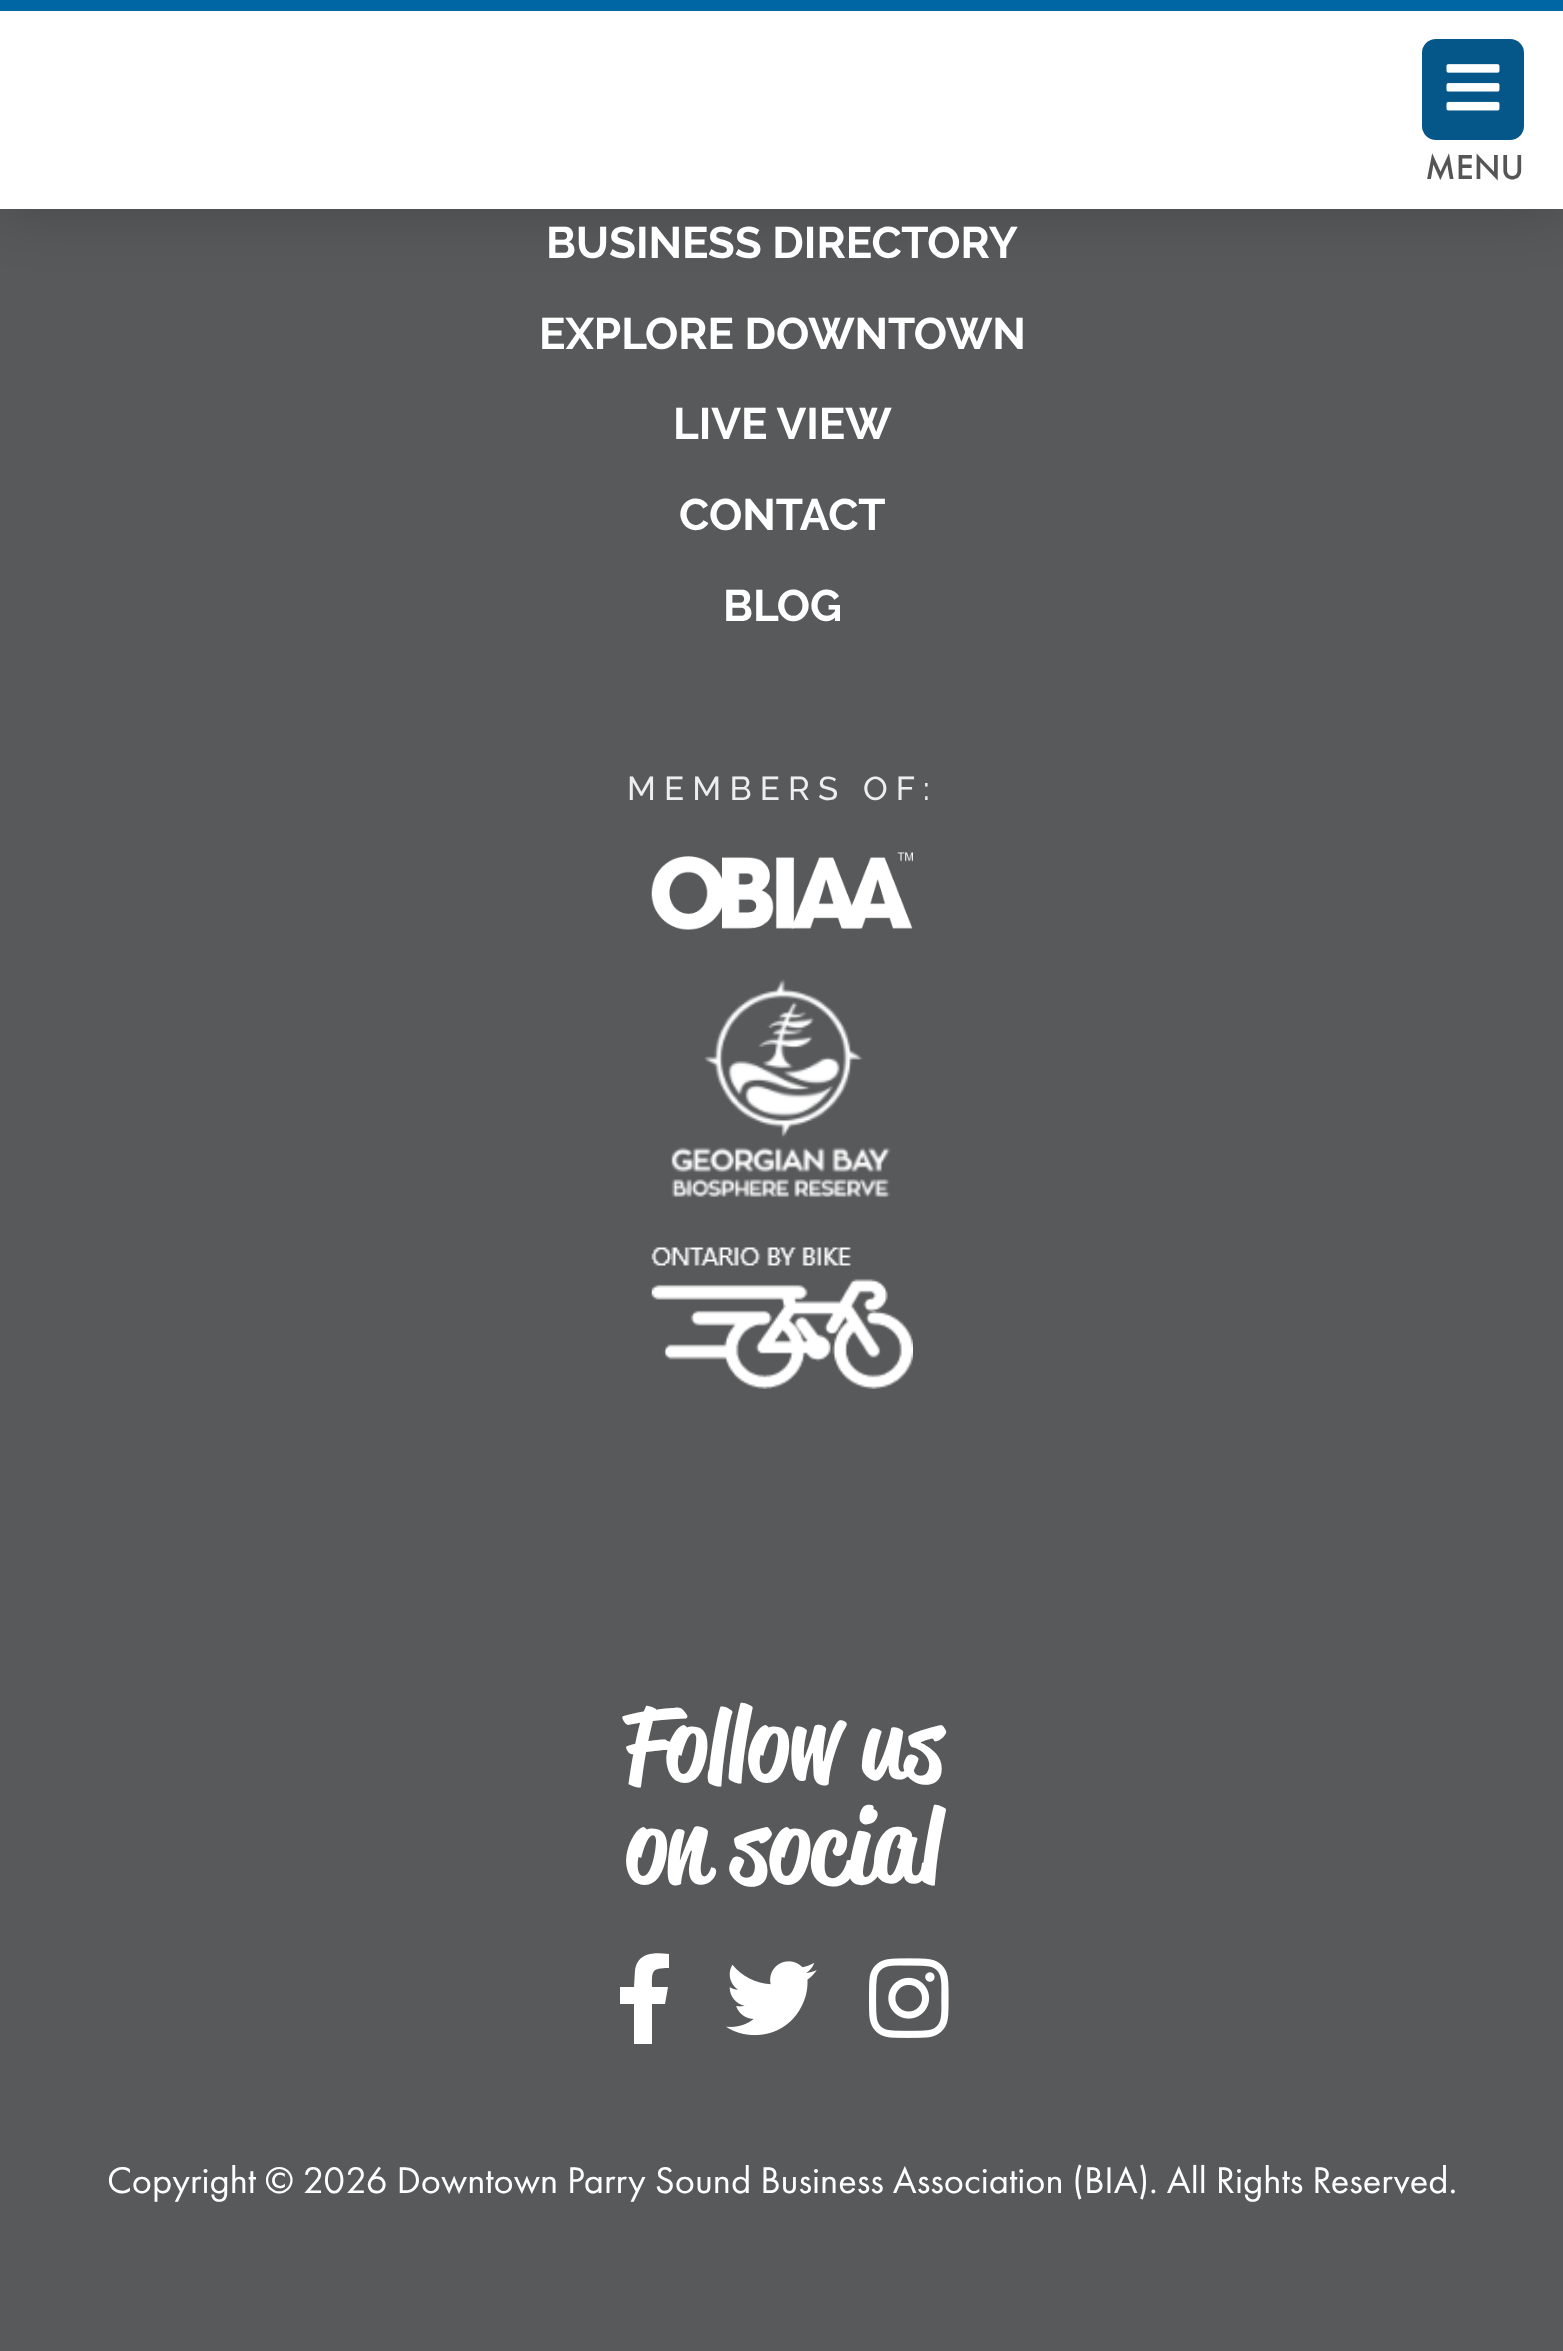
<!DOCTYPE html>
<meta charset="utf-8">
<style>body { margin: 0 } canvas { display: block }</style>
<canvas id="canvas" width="1563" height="2351"></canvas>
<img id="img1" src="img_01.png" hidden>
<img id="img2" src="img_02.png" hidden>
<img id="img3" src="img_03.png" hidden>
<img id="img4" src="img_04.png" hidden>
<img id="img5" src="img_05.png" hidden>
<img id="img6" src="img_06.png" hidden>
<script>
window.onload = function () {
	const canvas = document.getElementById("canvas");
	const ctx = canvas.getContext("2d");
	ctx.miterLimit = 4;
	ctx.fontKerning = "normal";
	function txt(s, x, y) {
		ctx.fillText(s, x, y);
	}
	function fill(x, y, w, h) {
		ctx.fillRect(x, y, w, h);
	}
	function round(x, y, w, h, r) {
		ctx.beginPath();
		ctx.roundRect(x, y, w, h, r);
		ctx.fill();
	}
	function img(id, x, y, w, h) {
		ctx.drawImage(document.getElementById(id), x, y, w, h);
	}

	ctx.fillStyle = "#58595B";
	fill(0, 0, 1563, 2351);
	ctx.fillStyle = "rgba(0, 0, 0, 0.2)";
	ctx.filter = "blur(30px)";
	ctx.beginPath();
	ctx.rect(0, 0, 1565, 209);
	ctx.fill();
	ctx.filter = "none";
	ctx.fillStyle = "#FFFFFF";
	fill(0, 11, 1563, 198);
	ctx.fillStyle = "#0066A4";
	fill(0, 0, 1563, 11);
	ctx.fillStyle = "#055689";
	round(1422, 39, 102, 101, 14);
	img("img1", 1446, 64, 54, 47);
	img("img2", 651, 852, 262, 78);
	img("img3", 670, 979, 221, 219);
	img("img4", 651, 1247, 262, 142);
	ctx.fillStyle = "#FFFFFF";
	ctx.beginPath();
	ctx.moveTo(665, 2004);
	ctx.lineTo(652, 2004);
	ctx.lineTo(652, 2044);
	ctx.lineTo(634, 2044);
	ctx.lineTo(634, 2004);
	ctx.lineTo(620, 2004);
	ctx.lineTo(620, 1987);
	ctx.lineTo(634, 1987);
	ctx.lineTo(635, 1970);
	ctx.bezierCurveTo(638, 1952, 654, 1952, 669, 1954);
	ctx.lineTo(669, 1968);
	ctx.bezierCurveTo(651, 1968, 652, 1971, 652, 1987);
	ctx.lineTo(668, 1987);
	ctx.closePath();
	ctx.fill();
	img("img5", 726, 1961, 91, 75);
	img("img6", 869, 1958, 80, 80);
	ctx.font = "500 36px Futura PT";
	ctx.fillStyle = "#555555";
	txt("MENU", 1425, 179);
	ctx.font = "bold 44px Raleway";
	ctx.fillStyle = "#FFFFFF";
	txt("BUSINESS DIRECTORY", 546, 258);
	txt("EXPLORE DOWNTOWN", 539, 349);
	txt("LIVE VIEW", 673, 439);
	txt("CONTACT", 679, 530);
	txt("BLOG", 723, 621);
	ctx.letterSpacing = "8.25px";
	ctx.font = "500 33px Raleway";
	ctx.fillStyle = "#EEEEEE";
	txt("MEMBERS OF:", 627, 800);
	ctx.letterSpacing = "0px";
	ctx.font = "500 102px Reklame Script";
	ctx.fillStyle = "#FFFFFF";
	txt("Follow us", 622, 1779);
	txt("on social", 625, 1881);
	ctx.font = "38.5px Futura PT";
	txt("Copyright © 2026 Downtown Parry Sound Business Association (BIA). All Rights Reserved.", 107, 2193);
};
</script>
